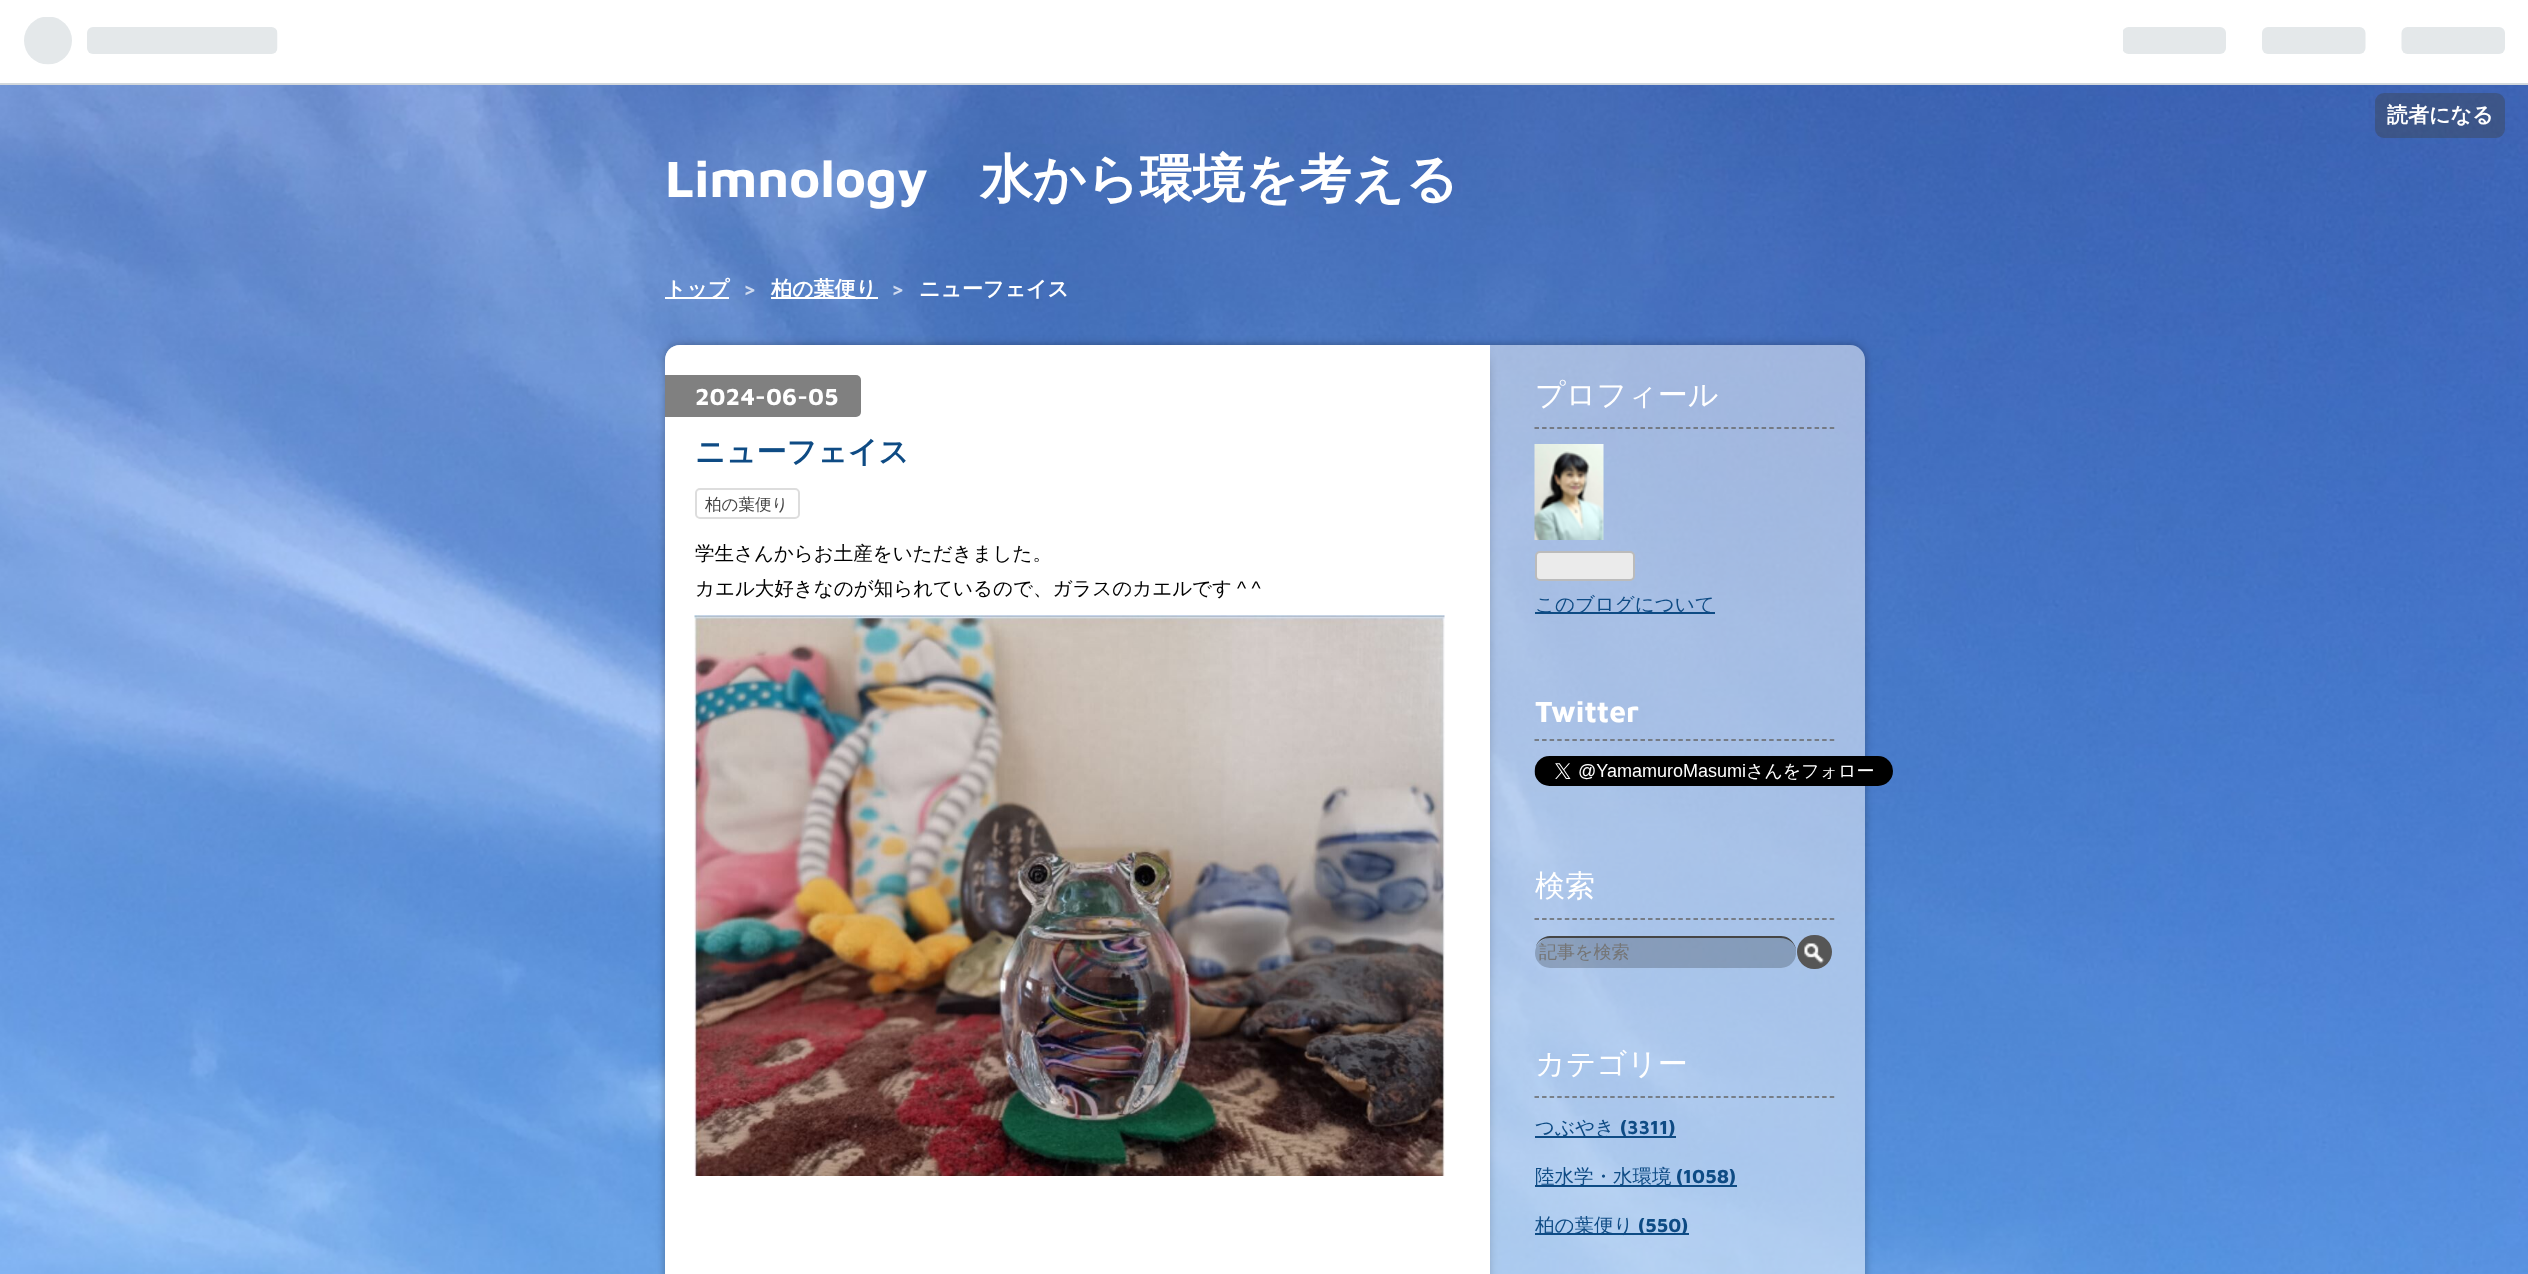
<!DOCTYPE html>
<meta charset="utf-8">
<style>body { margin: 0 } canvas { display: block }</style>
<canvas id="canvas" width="2528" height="1274"></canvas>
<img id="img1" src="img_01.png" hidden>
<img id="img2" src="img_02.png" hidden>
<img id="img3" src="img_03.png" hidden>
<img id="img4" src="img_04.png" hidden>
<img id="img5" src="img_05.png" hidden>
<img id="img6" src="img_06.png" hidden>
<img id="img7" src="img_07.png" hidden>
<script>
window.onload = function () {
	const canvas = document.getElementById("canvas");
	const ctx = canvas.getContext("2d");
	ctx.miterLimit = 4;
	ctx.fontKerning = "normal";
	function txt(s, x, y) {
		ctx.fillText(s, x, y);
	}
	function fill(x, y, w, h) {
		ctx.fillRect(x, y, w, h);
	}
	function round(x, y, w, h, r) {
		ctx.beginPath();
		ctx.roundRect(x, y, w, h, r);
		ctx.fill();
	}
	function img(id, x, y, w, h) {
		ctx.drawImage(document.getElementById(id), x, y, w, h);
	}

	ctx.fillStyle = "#FFFFFF";
	fill(0, 0, 2528, 1274);
	img("img1", 0, 85, 2528, 1189);
	ctx.fillStyle = "#D2D8DD";
	fill(0, 83, 2528, 2);
	img("img2", 24, 17, 254, 48);
	img("img3", 2123, 27, 382, 27);
	ctx.fillStyle = "rgba(61, 66, 69, 0.4)";
	round(2375, 93, 130, 45, 9);
	ctx.fillStyle = "#FFFFFF";
	fill(665, 297, 64, 2);
	fill(771, 297, 107, 2);
	ctx.save();
	ctx.beginPath();
	ctx.moveTo(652, 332);
	ctx.lineTo(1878, 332);
	ctx.lineTo(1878, 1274);
	ctx.lineTo(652, 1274);
	ctx.closePath();
	ctx.moveTo(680, 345);
	ctx.lineTo(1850, 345);
	ctx.bezierCurveTo(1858.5, 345, 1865, 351.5, 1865, 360);
	ctx.lineTo(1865, 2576);
	ctx.bezierCurveTo(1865, 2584.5, 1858.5, 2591, 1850, 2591);
	ctx.lineTo(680, 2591);
	ctx.bezierCurveTo(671.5, 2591, 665, 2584.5, 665, 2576);
	ctx.lineTo(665, 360);
	ctx.bezierCurveTo(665, 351.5, 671.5, 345, 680, 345);
	ctx.closePath();
	ctx.clip("evenodd");
	ctx.fillStyle = "rgba(0, 0, 0, 0.3)";
	ctx.filter = "blur(4px)";
	ctx.beginPath();
	ctx.roundRect(665, 345, 1200, 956, 15);
	ctx.fill();
	ctx.filter = "none";
	ctx.restore();
	ctx.fillStyle = "rgba(255, 255, 255, 0.5)";
	round(665, 345, 1200, 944, 15);
	ctx.fillStyle = "rgba(0, 0, 0, 0.7)";
	ctx.filter = "blur(7.5px)";
	ctx.beginPath();
	ctx.rect(687, 360, 795, 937);
	ctx.fill();
	ctx.filter = "none";
	ctx.fillStyle = "#FFFFFF";
	ctx.beginPath();
	ctx.moveTo(680, 345);
	ctx.lineTo(1490, 345);
	ctx.lineTo(1490, 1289);
	ctx.lineTo(680, 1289);
	ctx.bezierCurveTo(671.5, 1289, 665, 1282.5, 665, 1274);
	ctx.lineTo(665, 360);
	ctx.bezierCurveTo(665, 351.5, 671.5, 345, 680, 345);
	ctx.closePath();
	ctx.fill();
	ctx.fillStyle = "#808080";
	ctx.beginPath();
	ctx.roundRect(665, 375, 196, 42, [0, 5, 5, 0]);
	ctx.fill();
	ctx.beginPath();
	ctx.roundRect(696, 489, 103, 29, 4);
	ctx.strokeStyle = "#DDDDDD";
	ctx.lineWidth = 2;
	ctx.stroke();
	img("img4", 694, 615, 751, 561);
	ctx.beginPath();
	ctx.moveTo(1534.5, 428);
	ctx.lineTo(1834.5, 428);
	ctx.strokeStyle = "#666666";
	ctx.lineWidth = 1.5;
	ctx.setLineDash([4.5, 3.07]);
	ctx.stroke();
	img("img5", 1534, 444, 70, 96);
	ctx.fillStyle = "#EBEBEB";
	ctx.beginPath();
	ctx.roundRect(1536, 552, 98, 28, 4);
	ctx.fill();
	ctx.strokeStyle = "#BBBBBB";
	ctx.lineWidth = 2;
	ctx.setLineDash([]);
	ctx.stroke();
	ctx.fillStyle = "#0E4B84";
	fill(1535, 612, 180, 2);
	ctx.beginPath();
	ctx.moveTo(1534.5, 740);
	ctx.lineTo(1834.5, 740);
	ctx.strokeStyle = "#666666";
	ctx.lineWidth = 1.5;
	ctx.setLineDash([4.5, 3.07]);
	ctx.stroke();
	img("img6", 1534, 756, 359, 30);
	ctx.beginPath();
	ctx.moveTo(1534.5, 919);
	ctx.lineTo(1834.5, 919);
	ctx.stroke();
	ctx.fillStyle = "#454545";
	ctx.beginPath();
	ctx.moveTo(1550, 936);
	ctx.bezierCurveTo(1543, 936, 1537, 941, 1536, 947);
	ctx.bezierCurveTo(1538, 941, 1543, 938, 1550, 938);
	ctx.lineTo(1780, 938);
	ctx.bezierCurveTo(1789, 938, 1796, 944, 1796, 952);
	ctx.lineTo(1795, 956);
	ctx.bezierCurveTo(1799, 947, 1791, 936, 1781, 936);
	ctx.closePath();
	ctx.fill();
	ctx.fillStyle = "rgba(0, 0, 0, 0.2)";
	round(1535, 938, 261, 30, 15);
	ctx.fillStyle = "#565656";
	round(1797, 935, 35, 34, 17);
	img("img7", 1804, 943, 21, 21);
	ctx.beginPath();
	ctx.moveTo(1534.5, 1097);
	ctx.lineTo(1834.5, 1097);
	ctx.stroke();
	ctx.fillStyle = "#0E4B84";
	fill(1535, 1136, 141, 2);
	fill(1535, 1185, 202, 2);
	fill(1535, 1233, 154, 2);
	ctx.font = "bold 21px WenQuanYi Zen Hei";
	ctx.fillStyle = "#FFFFFF";
	txt("読者になる", 2387, 122);
	ctx.font = "bold 52.5px Maven Pro";
	txt("Limnology", 665, 197);
	ctx.font = "bold 52.5px WenQuanYi Zen Hei";
	txt("水から環境を考える", 980, 197);
	ctx.font = "bold 21px WenQuanYi Zen Hei";
	txt("トップ", 665, 296);
	ctx.font = "bold 21px Maven Pro";
	ctx.fillStyle = "#CED9EE";
	txt(">", 743, 296);
	ctx.font = "bold 21px WenQuanYi Zen Hei";
	ctx.fillStyle = "#FFFFFF";
	txt("柏の葉便り", 771, 296);
	ctx.font = "bold 21px Maven Pro";
	ctx.fillStyle = "#CED9EE";
	txt(">", 891, 296);
	ctx.font = "bold 21px WenQuanYi Zen Hei";
	ctx.fillStyle = "#FFFFFF";
	txt("ニューフェイス", 919, 296);
	ctx.font = "bold 24px Maven Pro";
	txt("2024-06-05", 695, 405);
	ctx.font = "bold 30px WenQuanYi Zen Hei";
	ctx.fillStyle = "#0E4B84";
	txt("ニューフェイス", 695, 462);
	ctx.font = "500 16.5px WenQuanYi Zen Hei";
	ctx.fillStyle = "#454545";
	txt("柏の葉便り", 705, 510);
	ctx.font = "500 19.5px WenQuanYi Zen Hei";
	ctx.fillStyle = "#000000";
	txt("学生さんからお土産をいただきました。", 695, 560);
	txt("カエル大好きなのが知られているので、ガラスのカエルです", 695, 595);
	ctx.font = "19.5px Liberation Sans";
	txt("^ ^", 1237, 595);
	ctx.font = "500 30px WenQuanYi Zen Hei";
	ctx.fillStyle = "#FFFFFF";
	txt("プロフィール", 1535, 405);
	ctx.font = "500 19.5px WenQuanYi Zen Hei";
	ctx.fillStyle = "#0E4B84";
	txt("このブログについて", 1535, 611);
	ctx.font = "bold 30px Maven Pro";
	ctx.fillStyle = "#FFFFFF";
	txt("Twitter", 1535, 722);
	ctx.font = "500 30px WenQuanYi Zen Hei";
	txt("検索", 1535, 896);
	ctx.font = "500 18px WenQuanYi Zen Hei";
	ctx.fillStyle = "#757575";
	txt("記事を検索", 1539, 958);
	ctx.font = "500 30px WenQuanYi Zen Hei";
	ctx.fillStyle = "#FFFFFF";
	txt("カテゴリー", 1535, 1074);
	ctx.font = "500 19.5px WenQuanYi Zen Hei";
	ctx.fillStyle = "#0E4B84";
	txt("つぶやき", 1535, 1134);
	ctx.font = "bold 19.5px Maven Pro";
	txt("(3311)", 1620, 1134);
	ctx.font = "500 19.5px WenQuanYi Zen Hei";
	txt("陸水学・水環境", 1535, 1183);
	ctx.font = "bold 19.5px Maven Pro";
	txt("(1058)", 1676, 1183);
	ctx.font = "500 19.5px WenQuanYi Zen Hei";
	txt("柏の葉便り", 1535, 1232);
	ctx.font = "bold 19.5px Maven Pro";
	txt("(550)", 1638, 1232);
};
</script>
